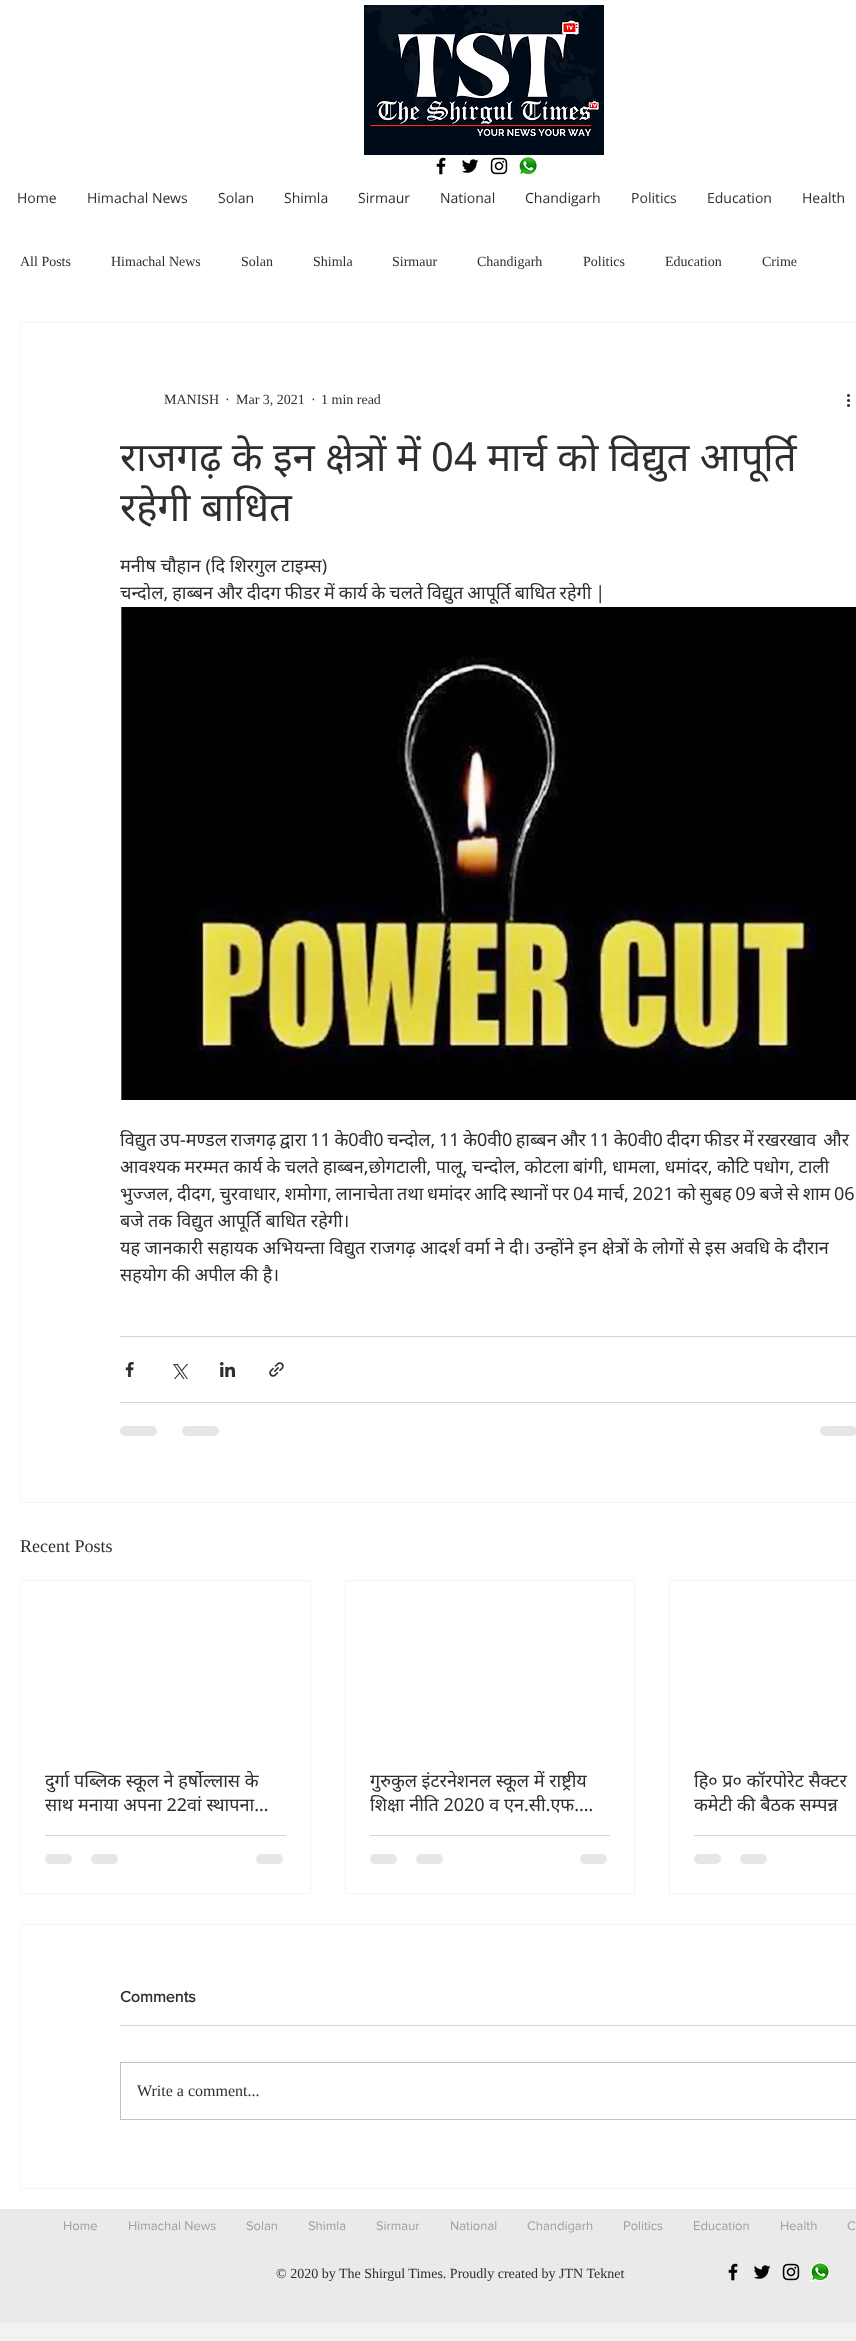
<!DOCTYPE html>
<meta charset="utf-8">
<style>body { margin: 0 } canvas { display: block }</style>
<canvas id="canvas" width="856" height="2341"></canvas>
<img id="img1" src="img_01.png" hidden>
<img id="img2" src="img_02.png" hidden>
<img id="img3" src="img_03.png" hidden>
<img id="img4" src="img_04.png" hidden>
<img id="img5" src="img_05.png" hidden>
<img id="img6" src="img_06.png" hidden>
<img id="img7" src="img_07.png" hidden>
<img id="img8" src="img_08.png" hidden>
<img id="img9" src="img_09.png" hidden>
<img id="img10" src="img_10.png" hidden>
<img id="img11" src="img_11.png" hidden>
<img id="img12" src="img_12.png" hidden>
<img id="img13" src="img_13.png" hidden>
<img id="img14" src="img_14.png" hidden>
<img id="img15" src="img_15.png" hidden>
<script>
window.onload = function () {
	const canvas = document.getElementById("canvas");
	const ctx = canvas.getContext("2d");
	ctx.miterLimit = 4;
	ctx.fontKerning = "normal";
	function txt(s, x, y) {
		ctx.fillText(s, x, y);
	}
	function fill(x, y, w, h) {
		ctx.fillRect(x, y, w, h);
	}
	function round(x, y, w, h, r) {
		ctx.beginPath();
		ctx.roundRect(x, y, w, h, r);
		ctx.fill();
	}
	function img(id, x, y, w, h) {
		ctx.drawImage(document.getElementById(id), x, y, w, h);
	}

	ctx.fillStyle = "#F2F2F2";
	fill(0, 0, 856, 2341);
	ctx.fillStyle = "#FFFFFF";
	fill(0, 0, 856, 2209);
	img("img1", 364, 5, 240, 150);
	img("img2", 436, 157, 10, 18);
	img("img3", 462, 159, 17, 14);
	img("img4", 490, 157, 18, 18);
	img("img5", 518, 155, 21, 22);
	ctx.strokeStyle = "#F5F5F5";
	ctx.strokeRect(20.5, 322.5, 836, 1180);
	img("img6", 847, 394, 3, 13);
	img("img7", 121, 607, 735, 493);
	ctx.fillStyle = "#D5D5D5";
	fill(120, 1336, 736, 1);
	img("img8", 125, 1362, 9, 15);
	img("img9", 173, 1364, 15, 15);
	img("img10", 220, 1362, 15, 15);
	img("img11", 269, 1362, 15, 15);
	fill(120, 1402, 736, 1);
	ctx.fillStyle = "#E6E6E6";
	round(120, 1426, 37, 10, 5);
	round(182, 1426, 37, 10, 5);
	round(820, 1426, 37, 10, 5);
	ctx.strokeRect(20.5, 1580.5, 290, 313);
	ctx.fillStyle = "#D5D5D5";
	fill(45, 1835, 241, 1);
	ctx.fillStyle = "#E6E6E6";
	round(45, 1854, 27, 10, 5);
	round(91, 1854, 27, 10, 5);
	round(256, 1854, 27, 10, 5);
	ctx.strokeRect(345.5, 1580.5, 289, 313);
	ctx.fillStyle = "#D5D5D5";
	fill(370, 1835, 240, 1);
	ctx.fillStyle = "#E6E6E6";
	round(370, 1854, 27, 10, 5);
	round(416, 1854, 27, 10, 5);
	round(580, 1854, 27, 10, 5);
	ctx.strokeRect(669.5, 1580.5, 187, 313);
	ctx.fillStyle = "#D5D5D5";
	fill(694, 1835, 162, 1);
	ctx.fillStyle = "#E6E6E6";
	round(694, 1854, 27, 10, 5);
	round(740, 1854, 27, 10, 5);
	ctx.strokeRect(20.5, 1924.5, 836, 264);
	ctx.fillStyle = "#D5D5D5";
	fill(120, 2025, 736, 1);
	ctx.strokeStyle = "#C1C0C0";
	ctx.strokeRect(120.5, 2062.5, 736, 57);
	ctx.fillStyle = "#EAEAEA";
	fill(0, 2209, 856, 114);
	img("img12", 728, 2263, 10, 18);
	img("img13", 754, 2265, 17, 14);
	img("img14", 782, 2263, 18, 18);
	img("img15", 810, 2261, 21, 21);
	ctx.font = "14px Open Sans";
	ctx.fillStyle = "#2F2E2E";
	txt("Home", 17, 203);
	txt("Himachal News", 87, 203);
	txt("Solan", 218, 203);
	txt("Shimla", 284, 203);
	txt("Sirmaur", 358, 203);
	txt("National", 440, 203);
	txt("Chandigarh", 525, 203);
	txt("Politics", 631, 203);
	txt("Education", 707, 203);
	txt("Health", 802, 203);
	ctx.font = "14px Liberation Serif";
	txt("All Posts", 20, 266);
	txt("Himachal News", 111, 266);
	txt("Solan", 241, 266);
	txt("Shimla", 313, 266);
	txt("Sirmaur", 392, 266);
	txt("Chandigarh", 477, 266);
	txt("Politics", 583, 266);
	txt("Education", 665, 266);
	txt("Crime", 762, 266);
	txt("MANISH", 164, 404);
	txt("·", 225, 404);
	txt("Mar 3, 2021", 236, 404);
	txt("·", 311, 404);
	txt("1 min read", 321, 404);
	ctx.font = "40px Noto Sans";
	txt("राजगढ़ के इन क्षेत्रों में 04 मार्च को विद्युत आपूर्ति", 120, 471);
	txt("रहेगी बाधित", 120, 521);
	ctx.font = "18px Noto Sans";
	txt("मनीष चौहान (दि शिरगुल टाइम्स)", 120, 572);
	ctx.wordSpacing = "-0.75px";
	txt("चन्दोल, हाब्बन और दीदग फीडर में कार्य के चलते विद्युत आपूर्ति बाधित रहेगी |", 120, 599);
	ctx.wordSpacing = "-1.1px";
	txt("विद्युत उप-मण्डल राजगढ़ द्वारा 11 के0वी0 चन्दोल, 11 के0वी0 हाब्बन और 11 के0वी0 दीदग फीडर में रखरखाव  और", 120, 1146);
	ctx.wordSpacing = "-0.4px";
	txt("आवश्यक मरम्मत कार्य के चलते हाब्बन,छोगटाली, पालू, चन्दोल, कोटला बांगी, धामला, धमांदर, कोेटि पधोग, टाली", 120, 1173);
	ctx.wordSpacing = "-1px";
	txt("भुज्जल, दीदग, चुरवाधार, शमोगा, लानाचेता तथा धमांदर आदि स्थानों पर 04 मार्च, 2021 को सुबह 09 बजे से शाम 06", 120, 1200);
	ctx.wordSpacing = "-0.2px";
	txt("बजे तक विद्युत आपूर्ति बाधित रहेगी।", 120, 1227);
	txt("यह जानकारी सहायक अभियन्ता विद्युत राजगढ़ आदर्श वर्मा ने दी। उन्होंने इन क्षेत्रों के लोगों से इस अवधि के दौरान", 120, 1254);
	txt("सहयोग की अपील की है।", 120, 1281);
	ctx.wordSpacing = "0px";
	ctx.font = "18px Liberation Serif";
	txt("Recent Posts", 20, 1552);
	ctx.font = "18px Noto Sans";
	txt("दुर्गा पब्लिक स्कूल ने हर्षोल्लास के", 45, 1787);
	txt("साथ मनाया अपना 22वां स्थापना…", 45, 1811);
	ctx.save();
	ctx.beginPath();
	ctx.rect(370, 1768, 240, 48);
	ctx.clip();
	txt("गुरुकुल इंटरनेशनल स्कूल में राष्ट्रीय", 370, 1787);
	ctx.restore();
	txt("शिक्षा नीति 2020 व एन.सी.एफ.…", 370, 1811);
	txt("हि० प्र० कॉरपोरेट सैक्टर", 694, 1787);
	txt("कमेटी की बैठक सम्पन्न", 694, 1811);
	ctx.font = "bold 16px 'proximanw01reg'";
	txt("Comments", 120, 2002);
	ctx.font = "16px Liberation Serif";
	txt("Write a comment...", 137, 2096);
	ctx.font = "13px 'proximanw01reg'";
	ctx.fillStyle = "#A0A09F";
	txt("Home", 63, 2230);
	txt("Himachal News", 128, 2230);
	txt("Solan", 246, 2230);
	txt("Shimla", 308, 2230);
	txt("Sirmaur", 376, 2230);
	txt("National", 450, 2230);
	txt("Chandigarh", 527, 2230);
	txt("Politics", 623, 2230);
	txt("Education", 693, 2230);
	txt("Health", 780, 2230);
	txt("C", 847, 2230);
	ctx.font = "14px Liberation Serif";
	ctx.fillStyle = "#2F2E2E";
	txt("© 2020 by The Shirgul Times. Proudly created by JTN Teknet", 276, 2278);
};
</script>
